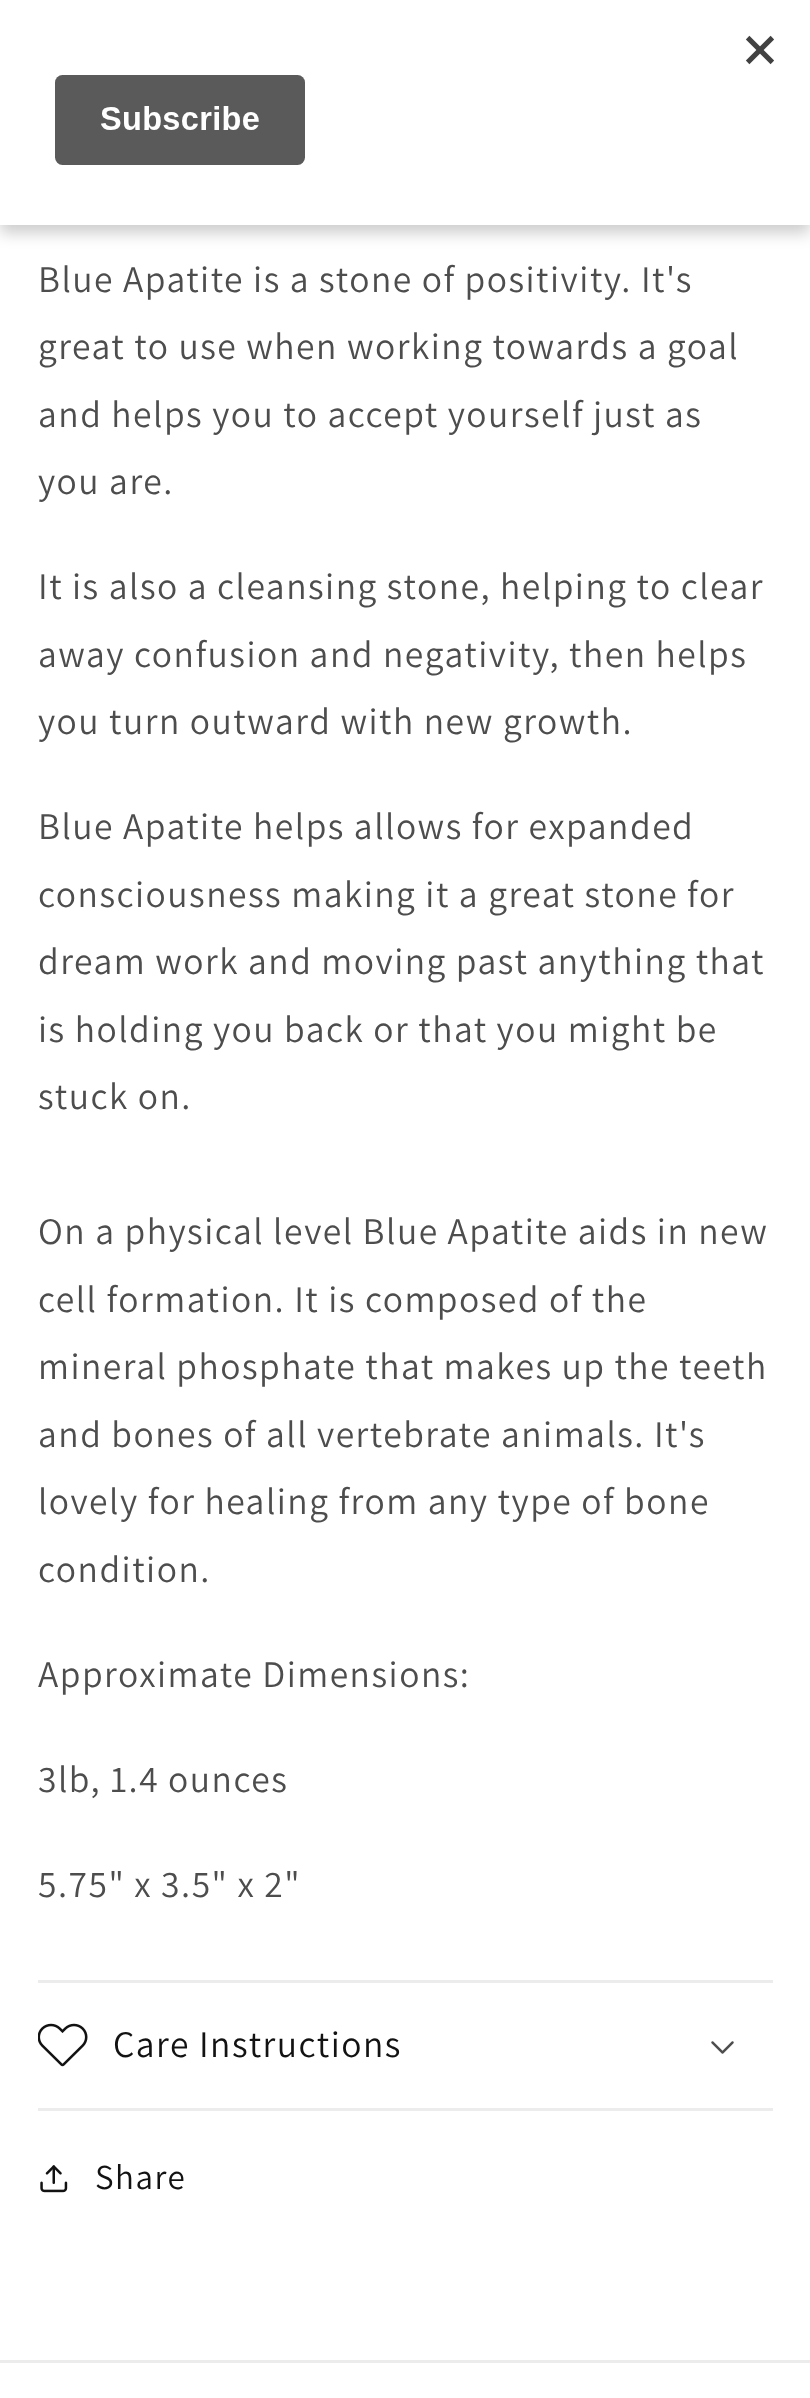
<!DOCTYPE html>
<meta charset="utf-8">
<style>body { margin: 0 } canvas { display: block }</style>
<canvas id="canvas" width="810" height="2398"></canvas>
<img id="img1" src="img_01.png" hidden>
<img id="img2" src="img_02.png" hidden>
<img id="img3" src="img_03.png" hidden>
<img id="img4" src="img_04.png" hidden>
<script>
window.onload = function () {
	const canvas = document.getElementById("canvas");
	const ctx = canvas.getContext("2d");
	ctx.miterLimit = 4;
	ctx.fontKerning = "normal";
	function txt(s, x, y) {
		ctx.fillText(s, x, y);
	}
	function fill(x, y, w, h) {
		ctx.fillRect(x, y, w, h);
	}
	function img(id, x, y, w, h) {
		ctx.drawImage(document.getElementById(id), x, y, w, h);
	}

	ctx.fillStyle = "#FFFFFF";
	fill(0, 0, 810, 2398);
	ctx.fillStyle = "rgba(0, 0, 0, 0.2)";
	ctx.filter = "blur(7.5px)";
	ctx.beginPath();
	ctx.rect(0, 8, 810, 225);
	ctx.fill();
	ctx.filter = "none";
	ctx.fillStyle = "#FFFFFF";
	fill(0, 0, 810, 225);
	img("img1", 55, 35, 719, 130);
	ctx.fillStyle = "#ECECEC";
	fill(38, 1980, 735, 3);
	fill(38, 2108, 735, 3);
	img("img2", 38, 2023, 50, 44);
	img("img3", 711, 2041, 23, 13);
	img("img4", 40, 2165, 28, 28);
	fill(0, 2360, 810, 3);
	ctx.letterSpacing = "1.5px";
	ctx.font = "37.5px Assistant";
	ctx.fillStyle = "#4D4D4D";
	txt("Blue Apatite is a stone of positivity. It's", 38, 292);
	txt("great to use when working towards a goal", 38, 359);
	txt("and helps you to accept yourself just as", 38, 427);
	txt("you are.", 38, 494);
	txt("It is also a cleansing stone, helping to clear", 38, 599);
	txt("away confusion and negativity, then helps", 38, 667);
	txt("you turn outward with new growth.", 38, 734);
	txt("Blue Apatite helps allows for expanded", 38, 839);
	txt("consciousness making it a great stone for", 38, 907);
	txt("dream work and moving past anything that", 38, 974);
	txt("is holding you back or that you might be", 38, 1042);
	txt("stuck on.", 38, 1109);
	txt("On a physical level Blue Apatite aids in new", 38, 1244);
	txt("cell formation. It is composed of the", 38, 1312);
	txt("mineral phosphate that makes up the teeth", 38, 1379);
	txt("and bones of all vertebrate animals. It's", 38, 1447);
	txt("lovely for healing from any type of bone", 38, 1514);
	txt("condition.", 38, 1582);
	txt("Approximate Dimensions:", 38, 1687);
	txt("3lb, 1.4 ounces", 38, 1792);
	txt("5.75\" x 3.5\" x 2\"", 38, 1897);
	ctx.fillStyle = "#121212";
	txt("Care Instructions", 113, 2057);
	ctx.font = "35px Assistant";
	txt("Share", 95, 2189);
};
</script>
